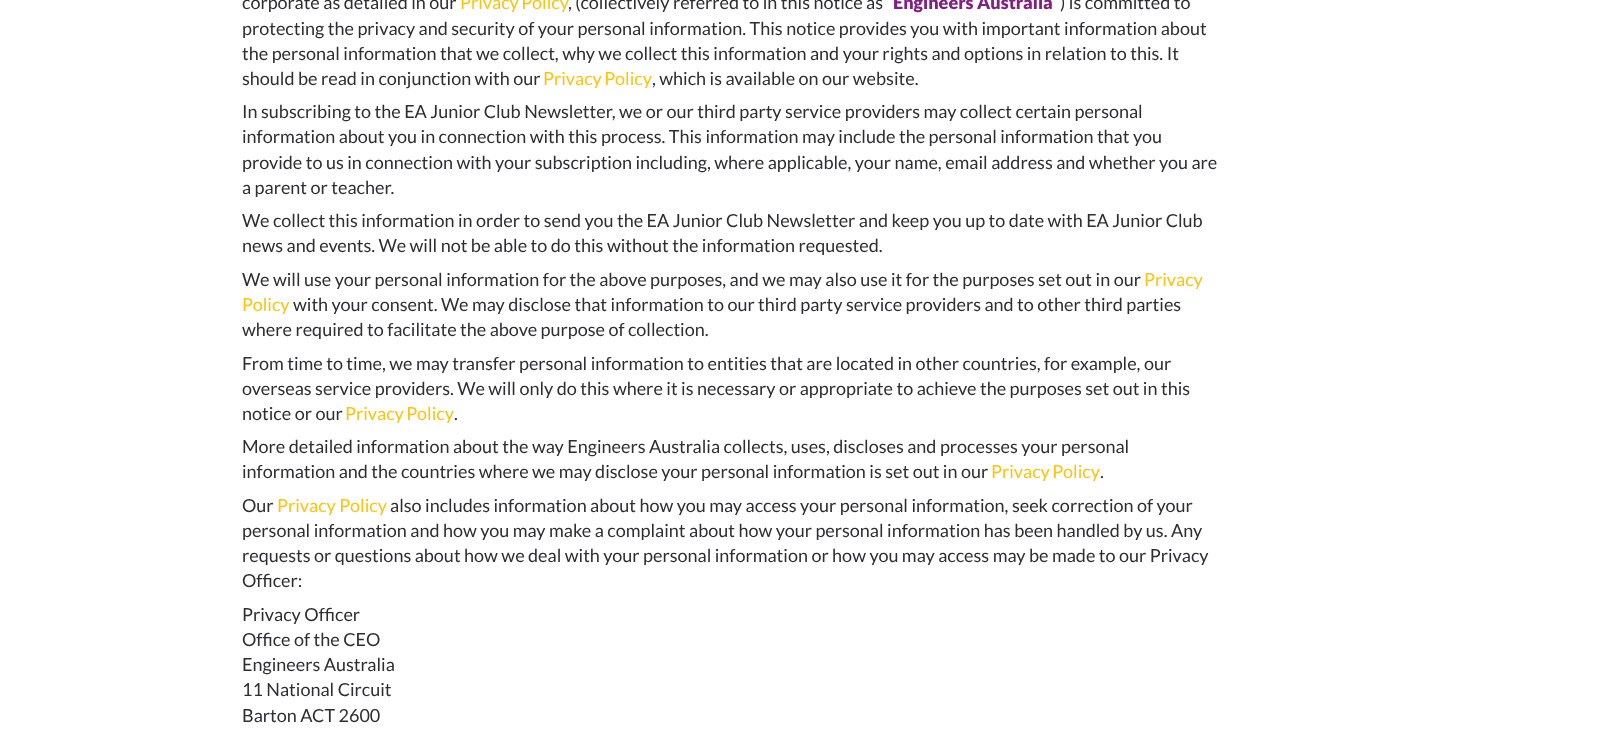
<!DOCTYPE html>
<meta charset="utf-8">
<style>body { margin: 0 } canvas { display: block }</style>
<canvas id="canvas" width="1623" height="731"></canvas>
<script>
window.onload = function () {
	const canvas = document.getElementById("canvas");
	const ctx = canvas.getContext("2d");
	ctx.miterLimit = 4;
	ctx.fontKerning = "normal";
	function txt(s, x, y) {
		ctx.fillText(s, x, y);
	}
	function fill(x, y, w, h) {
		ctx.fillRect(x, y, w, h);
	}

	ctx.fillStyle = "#FFFFFF";
	fill(0, 0, 1623, 731);
	ctx.font = "18px Lato";
	ctx.fillStyle = "#2E2E31";
	txt("corporate as detailed in our", 242, 9);
	ctx.wordSpacing = "-1px";
	ctx.fillStyle = "#FFC20E";
	txt("Privacy Policy", 460, 9);
	ctx.wordSpacing = "0px";
	ctx.fillStyle = "#2E2E31";
	txt(", (collectively referred to in this notice as", 568, 9);
	ctx.font = "900 18px Lato";
	ctx.fillStyle = "#821F82";
	txt("Engineers Australia", 893, 9);
	ctx.font = "18px Lato";
	ctx.fillStyle = "#2E2E31";
	txt(") is committed to", 1060, 9);
	txt("protecting the privacy and security of your personal information. This notice provides you with important information about", 242, 35);
	txt("the personal information that we collect, why we collect this information and your rights and options in relation to this. It", 242, 60);
	txt("should be read in conjunction with our", 242, 85);
	ctx.wordSpacing = "-1px";
	ctx.fillStyle = "#FFC20E";
	txt("Privacy Policy", 543, 85);
	ctx.wordSpacing = "0px";
	ctx.fillStyle = "#2E2E31";
	txt(", which is available on our website.", 652, 85);
	txt("In subscribing to the EA Junior Club Newsletter, we or our third party service providers may collect certain personal", 242, 118);
	txt("information about you in connection with this process. This information may include the personal information that you", 242, 143);
	txt("provide to us in connection with your subscription including, where applicable, your name, email address and whether you are", 242, 169);
	txt("a parent or teacher.", 242, 194);
	txt("We collect this information in order to send you the EA Junior Club Newsletter and keep you up to date with EA Junior Club", 242, 227);
	txt("news and events. We will not be able to do this without the information requested.", 242, 252);
	txt("We will use your personal information for the above purposes, and we may also use it for the purposes set out in our", 242, 286);
	ctx.fillStyle = "#FFC20E";
	txt("Privacy", 1144, 286);
	txt("Policy", 242, 311);
	ctx.fillStyle = "#2E2E31";
	txt("with your consent. We may disclose that information to our third party service providers and to other third parties", 293, 311);
	txt("where required to facilitate the above purpose of collection.", 242, 336);
	txt("From time to time, we may transfer personal information to entities that are located in other countries, for example, our", 242, 370);
	txt("overseas service providers. We will only do this where it is necessary or appropriate to achieve the purposes set out in this", 242, 395);
	txt("notice or our", 242, 420);
	ctx.wordSpacing = "-1px";
	ctx.fillStyle = "#FFC20E";
	txt("Privacy Policy", 345, 420);
	ctx.wordSpacing = "0px";
	ctx.fillStyle = "#2E2E31";
	txt(".", 454, 420);
	txt("More detailed information about the way Engineers Australia collects, uses, discloses and processes your personal", 242, 453);
	txt("information and the countries where we may disclose your personal information is set out in our", 242, 478);
	ctx.wordSpacing = "-1px";
	ctx.fillStyle = "#FFC20E";
	txt("Privacy Policy", 991, 478);
	ctx.wordSpacing = "0px";
	ctx.fillStyle = "#2E2E31";
	txt(".", 1100, 478);
	txt("Our", 242, 512);
	ctx.fillStyle = "#FFC20E";
	txt("Privacy Policy", 277, 512);
	ctx.fillStyle = "#2E2E31";
	txt("also includes information about how you may access your personal information, seek correction of your", 390, 512);
	txt("personal information and how you may make a complaint about how your personal information has been handled by us. Any", 242, 537);
	txt("requests or questions about how we deal with your personal information or how you may access may be made to our Privacy", 242, 562);
	txt("Officer:", 242, 587);
	txt("Privacy Officer", 242, 621);
	txt("Office of the CEO", 242, 646);
	txt("Engineers Australia", 242, 671);
	txt("11 National Circuit", 242, 696);
	txt("Barton ACT 2600", 242, 722);
};
</script>
